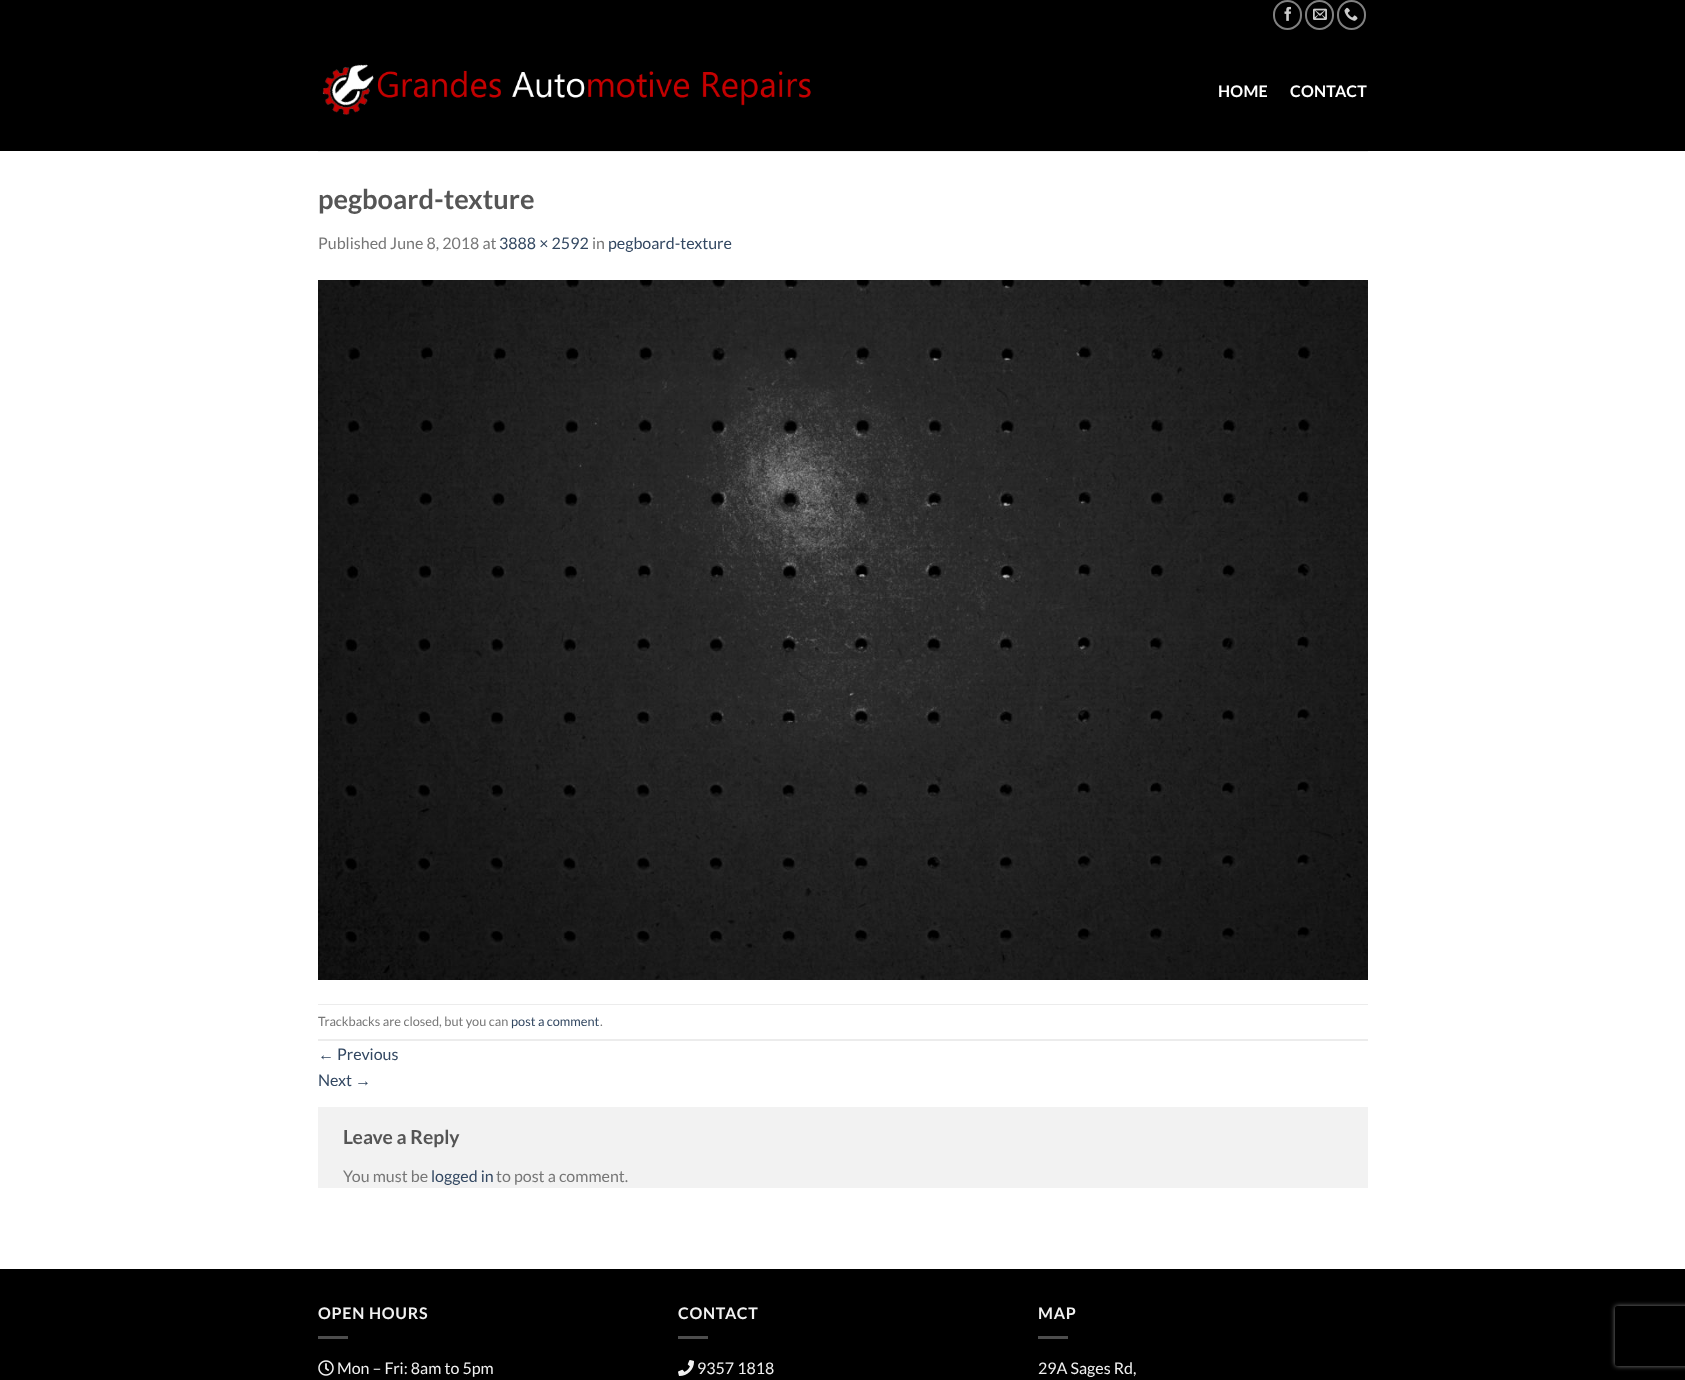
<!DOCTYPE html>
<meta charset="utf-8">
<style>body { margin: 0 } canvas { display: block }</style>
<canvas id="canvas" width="1685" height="1380"></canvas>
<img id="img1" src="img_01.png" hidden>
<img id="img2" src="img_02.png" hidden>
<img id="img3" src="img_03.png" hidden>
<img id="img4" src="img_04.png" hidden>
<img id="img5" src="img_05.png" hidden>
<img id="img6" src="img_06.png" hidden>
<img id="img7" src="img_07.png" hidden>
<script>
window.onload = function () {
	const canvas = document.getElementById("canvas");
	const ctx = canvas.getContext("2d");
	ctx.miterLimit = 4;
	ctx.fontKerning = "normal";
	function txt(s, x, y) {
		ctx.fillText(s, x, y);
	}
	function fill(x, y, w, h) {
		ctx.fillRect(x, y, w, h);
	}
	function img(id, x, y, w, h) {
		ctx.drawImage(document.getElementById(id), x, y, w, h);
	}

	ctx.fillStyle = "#FFFFFF";
	fill(0, 0, 1685, 1380);
	ctx.fillStyle = "#000000";
	fill(0, 0, 1685, 151);
	ctx.beginPath();
	ctx.roundRect(1274, 1, 27, 28, 13.5);
	ctx.strokeStyle = "#808080";
	ctx.lineWidth = 2;
	ctx.stroke();
	img("img1", 1284, 6, 7, 15);
	ctx.beginPath();
	ctx.roundRect(1306, 1, 27, 28, 13.5);
	ctx.stroke();
	img("img2", 1313, 8, 14, 12);
	ctx.beginPath();
	ctx.roundRect(1338, 1, 27, 28, 13.5);
	ctx.stroke();
	img("img3", 1344, 7, 14, 14);
	img("img4", 322, 64, 489, 51);
	ctx.fillStyle = "#F1F1F1";
	fill(318, 151, 1050, 1);
	img("img5", 318, 280, 1050, 700);
	ctx.fillStyle = "#ECECEC";
	fill(318, 1004, 1050, 1);
	fill(318, 1039, 1050, 2);
	ctx.fillStyle = "#F2F2F2";
	fill(318, 1107, 1050, 81);
	ctx.fillStyle = "#000000";
	fill(0, 1269, 1685, 111);
	ctx.fillStyle = "#4D4D4D";
	fill(318, 1336, 30, 3);
	img("img6", 318, 1360, 16, 16);
	fill(678, 1336, 30, 3);
	img("img7", 678, 1360, 16, 16);
	fill(1038, 1336, 30, 3);
	ctx.save();
	ctx.beginPath();
	ctx.moveTo(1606, 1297);
	ctx.lineTo(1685, 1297);
	ctx.lineTo(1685, 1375);
	ctx.lineTo(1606, 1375);
	ctx.closePath();
	ctx.moveTo(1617, 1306);
	ctx.lineTo(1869, 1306);
	ctx.bezierCurveTo(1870, 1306, 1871, 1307, 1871, 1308);
	ctx.lineTo(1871, 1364);
	ctx.bezierCurveTo(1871, 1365, 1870, 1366, 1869, 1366);
	ctx.lineTo(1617, 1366);
	ctx.bezierCurveTo(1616, 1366, 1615, 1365, 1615, 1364);
	ctx.lineTo(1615, 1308);
	ctx.bezierCurveTo(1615, 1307, 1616, 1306, 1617, 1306);
	ctx.closePath();
	ctx.clip("evenodd");
	ctx.fillStyle = "#808080";
	ctx.filter = "blur(2.5px)";
	ctx.beginPath();
	ctx.roundRect(1615, 1306, 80, 60, 2);
	ctx.fill();
	ctx.filter = "none";
	ctx.restore();
	ctx.letterSpacing = "0.25px";
	ctx.font = "bold 16px Lato";
	ctx.fillStyle = "#FFFFFF";
	txt("HOME", 1218, 97);
	txt("CONTACT", 1290, 97);
	ctx.letterSpacing = "0px";
	ctx.font = "bold 27.25px Lato";
	ctx.fillStyle = "#555555";
	txt("pegboard-texture", 318, 209);
	ctx.font = "16px Lato";
	ctx.fillStyle = "#777777";
	txt("Published June 8, 2018 at", 318, 249);
	ctx.fillStyle = "#334862";
	txt("3888 × 2592", 499, 249);
	ctx.fillStyle = "#777777";
	txt("in", 592, 249);
	ctx.fillStyle = "#334862";
	txt("pegboard-texture", 608, 249);
	ctx.font = "12.75px Lato";
	ctx.fillStyle = "#777777";
	txt("Trackbacks are closed, but you can", 318, 1026);
	ctx.fillStyle = "#334862";
	txt("post a comment", 511, 1026);
	ctx.fillStyle = "#777777";
	txt(".", 600, 1026);
	ctx.font = "16px Liberation Sans";
	ctx.fillStyle = "#334862";
	txt("←", 318, 1060);
	ctx.font = "16px Lato";
	txt("Previous", 337, 1060);
	txt("Next", 318, 1086);
	ctx.font = "16px Liberation Sans";
	txt("→", 355, 1086);
	ctx.font = "bold 19.25px Lato";
	ctx.fillStyle = "#555555";
	txt("Leave a Reply", 343, 1144);
	ctx.font = "16px Lato";
	ctx.fillStyle = "#777777";
	txt("You must be", 343, 1182);
	ctx.fillStyle = "#334862";
	txt("logged in", 431, 1182);
	ctx.fillStyle = "#777777";
	txt("to post a comment.", 496, 1182);
	ctx.letterSpacing = "0.75px";
	ctx.font = "bold 16px Lato";
	ctx.fillStyle = "#F1F1F1";
	txt("OPEN HOURS", 318, 1319);
	ctx.letterSpacing = "0px";
	ctx.font = "16px Lato";
	txt("Mon – Fri: 8am to 5pm", 337, 1374);
	ctx.letterSpacing = "0.75px";
	ctx.font = "bold 16px Lato";
	txt("CONTACT", 678, 1319);
	ctx.letterSpacing = "0px";
	ctx.font = "16px Lato";
	txt("9357 1818", 697, 1374);
	ctx.letterSpacing = "0.75px";
	ctx.font = "bold 16px Lato";
	txt("MAP", 1038, 1319);
	ctx.letterSpacing = "0px";
	ctx.font = "16px Lato";
	txt("29A Sages Rd,", 1038, 1374);
};
</script>
